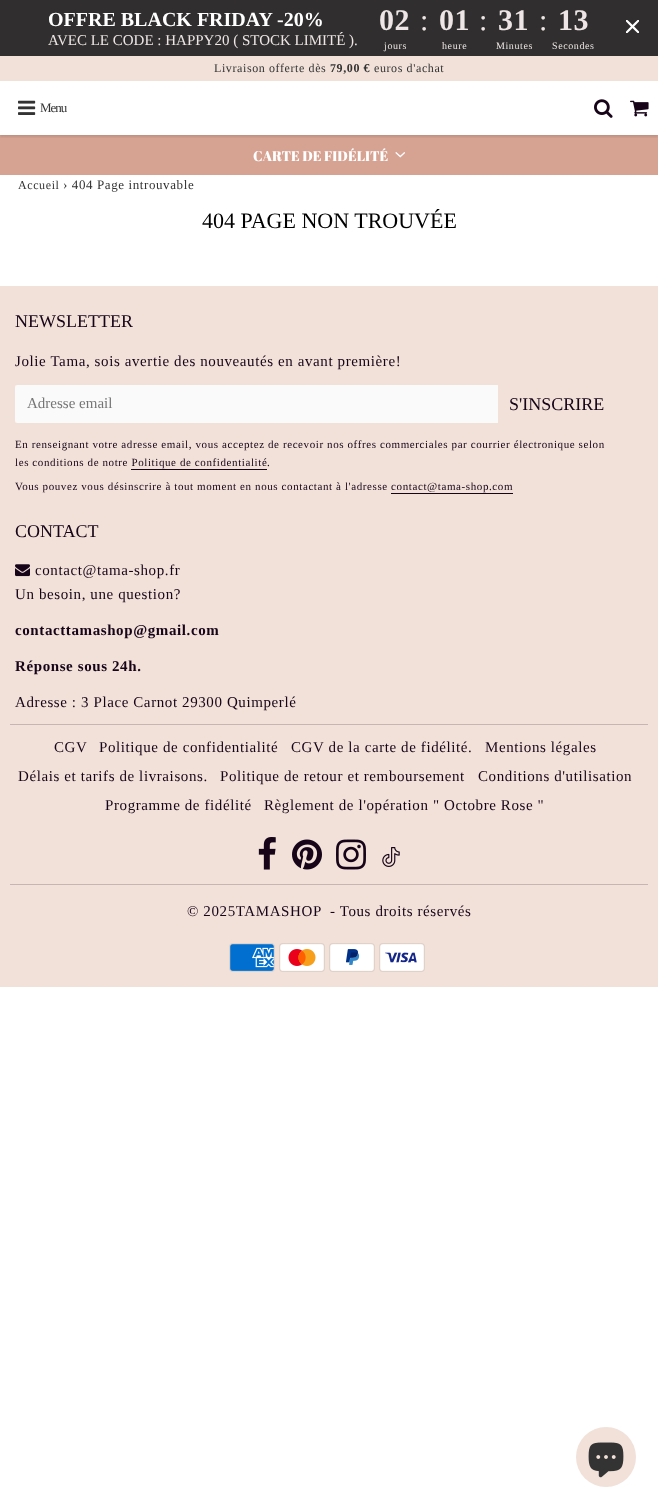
<!DOCTYPE html>
<meta charset="utf-8">
<style>body { margin: 0 } canvas { display: block }</style>
<canvas id="canvas" width="658" height="1508"></canvas>
<img id="img1" src="img_01.png" hidden>
<img id="img2" src="img_02.png" hidden>
<img id="img3" src="img_03.png" hidden>
<img id="img4" src="img_04.png" hidden>
<img id="img5" src="img_05.png" hidden>
<img id="img6" src="img_06.png" hidden>
<img id="img7" src="img_07.png" hidden>
<img id="img8" src="img_08.png" hidden>
<img id="img9" src="img_09.png" hidden>
<img id="img10" src="img_10.png" hidden>
<img id="img11" src="img_11.png" hidden>
<img id="img12" src="img_12.png" hidden>
<img id="img13" src="img_13.png" hidden>
<img id="img14" src="img_14.png" hidden>
<img id="img15" src="img_15.png" hidden>
<script>
window.onload = function () {
	const canvas = document.getElementById("canvas");
	const ctx = canvas.getContext("2d");
	ctx.miterLimit = 4;
	ctx.fontKerning = "normal";
	function txt(s, x, y) {
		ctx.fillText(s, x, y);
	}
	function fill(x, y, w, h) {
		ctx.fillRect(x, y, w, h);
	}
	function img(id, x, y, w, h) {
		ctx.drawImage(document.getElementById(id), x, y, w, h);
	}

	ctx.fillStyle = "#FFFFFF";
	fill(0, 0, 658, 1508);
	ctx.fillStyle = "#302E2E";
	fill(0, 0, 658, 56);
	img("img1", 626, 20, 13, 13);
	ctx.fillStyle = "#D6A292";
	fill(0, 135, 658, 40);
	ctx.save();
	ctx.beginPath();
	ctx.rect(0, 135, 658, 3);
	ctx.clip();
	ctx.fillStyle = "rgba(0, 0, 0, 0.1)";
	ctx.filter = "blur(1px)";
	ctx.beginPath();
	ctx.rect(0, 83, 658, 54);
	ctx.fill();
	ctx.filter = "none";
	ctx.restore();
	ctx.fillStyle = "#F1E1D9";
	fill(0, 56, 658, 25);
	img("img2", 18, 100, 18, 15);
	img("img3", 594, 99, 19, 19);
	img("img4", 630, 100, 19, 17);
	img("img5", 395, 152, 10, 6);
	fill(0, 286, 658, 701);
	ctx.fillStyle = "#FAFAFA";
	ctx.beginPath();
	ctx.roundRect(15, 385, 483, 38, [2, 0, 0, 2]);
	ctx.fill();
	ctx.fillStyle = "#180419";
	fill(131, 469, 136, 1);
	fill(391, 493, 122, 1);
	img("img6", 15, 564, 15, 13);
	ctx.fillStyle = "#C6B5B3";
	fill(10, 724, 638, 1);
	img("img7", 258, 837, 18, 33);
	img("img8", 292, 839, 30, 31);
	img("img9", 336, 839, 30, 31);
	img("img10", 382, 847, 18, 20);
	fill(10, 884, 638, 1);
	img("img11", 229, 943, 46, 29);
	img("img12", 279, 943, 46, 29);
	img("img13", 329, 943, 46, 29);
	img("img14", 379, 943, 46, 29);
	ctx.fillStyle = "#F1E1D9";
	ctx.beginPath();
	ctx.arc(606, 1457, 30, 0, Math.PI * 2);
	ctx.fill();
	img("img15", 588, 1442, 36, 36);
	ctx.font = "bold 20px Liberation Serif";
	ctx.fillStyle = "#FFFFFF";
	txt("OFFRE BLACK FRIDAY -20%", 48, 26);
	ctx.font = "15px Liberation Serif";
	ctx.fillStyle = "#EEE6E6";
	txt("AVEC LE CODE : HAPPY20 ( STOCK LIMITÉ ).", 48, 45);
	ctx.letterSpacing = "0.6px";
	ctx.font = "bold 30px Liberation Serif";
	txt("02", 379, 30);
	ctx.font = "30px Liberation Serif";
	txt(":", 420, 30);
	ctx.font = "bold 30px Liberation Serif";
	txt("01", 439, 30);
	ctx.font = "30px Liberation Serif";
	txt(":", 479, 30);
	ctx.font = "bold 30px Liberation Serif";
	txt("31", 498, 30);
	ctx.font = "30px Liberation Serif";
	txt(":", 539, 30);
	ctx.font = "bold 30px Liberation Serif";
	txt("13", 558, 30);
	ctx.font = "10px Liberation Serif";
	txt("jours", 384, 49);
	txt("heure", 442, 49);
	txt("Minutes", 496, 49);
	txt("Secondes", 552, 49);
	ctx.font = "12px Liberation Serif";
	ctx.fillStyle = "#333333";
	txt("Livraison offerte dès", 214, 72);
	ctx.font = "bold 12px Liberation Serif";
	txt("79,00 €", 330, 72);
	ctx.font = "12px Liberation Serif";
	txt("euros d'achat", 374, 72);
	ctx.letterSpacing = "-1px";
	ctx.font = "13px Liberation Serif";
	txt("Menu", 40, 112);
	ctx.letterSpacing = "0px";
	ctx.font = "14px Abril Fatface";
	ctx.fillStyle = "#FFFFFF";
	txt("CARTE DE FIDÉLITÉ", 253, 161);
	ctx.letterSpacing = "0.6px";
	ctx.font = "12px Liberation Serif";
	ctx.fillStyle = "#333333";
	txt("Accueil", 18, 189);
	ctx.font = "13px Liberation Serif";
	txt("› 404 Page introuvable", 63, 189);
	ctx.letterSpacing = "0px";
	ctx.font = "22px Liberation Serif";
	ctx.fillStyle = "#000000";
	txt("404 PAGE NON TROUVÉE", 202, 228);
	ctx.font = "18px Liberation Serif";
	ctx.fillStyle = "#180419";
	txt("NEWSLETTER", 15, 327);
	ctx.letterSpacing = "0.6px";
	ctx.font = "15px Liberation Serif";
	txt("Jolie Tama, sois avertie des nouveautés en avant première!", 15, 366);
	ctx.letterSpacing = "0px";
	ctx.fillStyle = "#757575";
	txt("Adresse email", 27, 408);
	ctx.font = "18px Liberation Serif";
	ctx.fillStyle = "#180419";
	txt("S'INSCRIRE", 509, 410);
	ctx.letterSpacing = "0.6px";
	ctx.font = "11px Liberation Serif";
	txt("En renseignant votre adresse email, vous acceptez de recevoir nos offres commerciales par courrier électronique selon", 15, 448);
	txt("les conditions de notre Politique de confidentialité", 15, 466);
	txt(".", 267, 466);
	txt("Vous pouvez vous désinscrire à tout moment en nous contactant à l'adresse contact@tama-shop.com", 15, 490);
	ctx.letterSpacing = "0px";
	ctx.font = "18px Liberation Serif";
	txt("CONTACT", 15, 537);
	ctx.letterSpacing = "0.6px";
	ctx.font = "15px Liberation Serif";
	txt("contact@tama-shop.fr", 35, 575);
	txt("Un besoin, une question?", 15, 599);
	ctx.font = "bold 15px Liberation Serif";
	txt("contacttamashop@gmail.com", 15, 635);
	txt("Réponse sous 24h.", 15, 671);
	ctx.font = "15px Liberation Serif";
	txt("Adresse : 3 Place Carnot 29300 Quimperlé", 15, 707);
	txt("CGV", 54, 752);
	txt("Politique de confidentialité", 99, 752);
	txt("CGV de la carte de fidélité.", 291, 752);
	txt("Mentions légales", 485, 752);
	txt("Délais et tarifs de livraisons.", 18, 781);
	txt("Politique de retour et remboursement", 220, 781);
	txt("Conditions d'utilisation", 478, 781);
	txt("Programme de fidélité", 105, 810);
	txt("Règlement de l'opération \" Octobre Rose \"", 264, 810);
	txt("© 2025TAMASHOP", 187, 916);
	txt("- Tous droits réservés", 330, 916);
};
</script>
